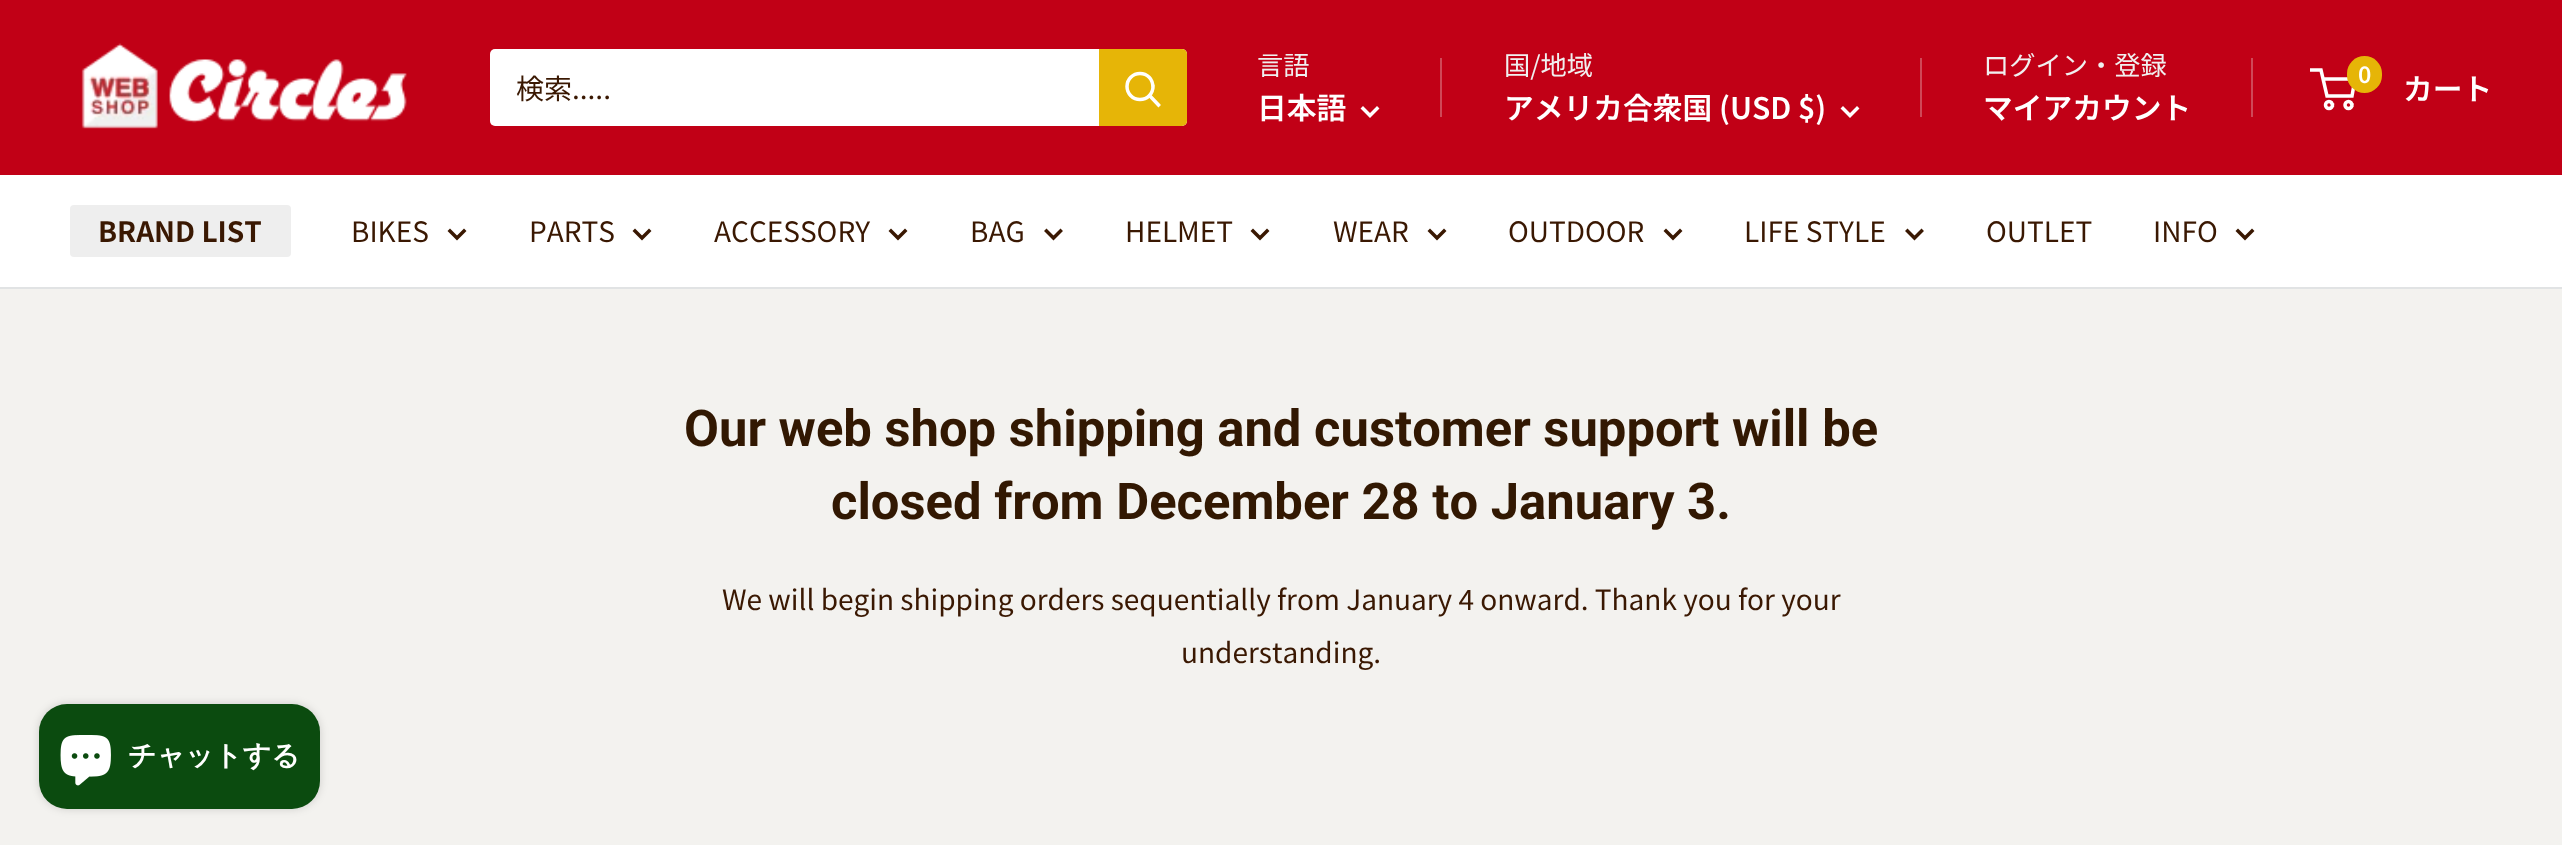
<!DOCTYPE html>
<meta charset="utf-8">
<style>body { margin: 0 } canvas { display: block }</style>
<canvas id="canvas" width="2562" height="845"></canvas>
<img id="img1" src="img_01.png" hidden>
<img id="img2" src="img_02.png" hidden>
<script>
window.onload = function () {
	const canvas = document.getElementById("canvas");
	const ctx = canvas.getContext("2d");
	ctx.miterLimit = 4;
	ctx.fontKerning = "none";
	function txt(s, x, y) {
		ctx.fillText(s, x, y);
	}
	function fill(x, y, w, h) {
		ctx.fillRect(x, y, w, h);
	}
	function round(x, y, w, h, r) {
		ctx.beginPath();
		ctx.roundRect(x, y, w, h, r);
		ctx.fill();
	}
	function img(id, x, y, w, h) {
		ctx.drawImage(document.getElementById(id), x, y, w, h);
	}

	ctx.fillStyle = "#F3F2EF";
	fill(0, 0, 2562, 845);
	ctx.fillStyle = "#C10016";
	fill(0, 0, 2562, 175);
	img("img1", 81, 43, 326, 86);
	ctx.fillStyle = "#FFFFFF";
	round(490, 49, 697, 77, 5);
	ctx.fillStyle = "#E6B507";
	ctx.beginPath();
	ctx.roundRect(1099, 49, 88, 77, [0, 5, 5, 0]);
	ctx.fill();
	ctx.beginPath();
	ctx.moveTo(1158.5, 105);
	ctx.lineTo(1150, 96);
	ctx.strokeStyle = "#FFFFFF";
	ctx.lineWidth = 3.5;
	ctx.lineCap = "square";
	ctx.stroke();
	ctx.beginPath();
	ctx.arc(1140, 86.5, 13, 0, Math.PI * 2);
	ctx.stroke();
	ctx.beginPath();
	ctx.moveTo(1377, 108.5);
	ctx.lineTo(1370, 115.5);
	ctx.lineTo(1363, 108.5);
	ctx.stroke();
	ctx.fillStyle = "#CF4857";
	fill(1440, 58, 2, 59);
	ctx.beginPath();
	ctx.moveTo(1857, 108.5);
	ctx.lineTo(1850, 115.5);
	ctx.lineTo(1843, 108.5);
	ctx.stroke();
	fill(1920, 58, 2, 59);
	fill(2251, 58, 2, 59);
	ctx.beginPath();
	ctx.arc(2329, 105, 3.5, 0, Math.PI * 2);
	ctx.stroke();
	ctx.beginPath();
	ctx.arc(2348.5, 105, 3.5, 0, Math.PI * 2);
	ctx.stroke();
	ctx.beginPath();
	ctx.moveTo(2323, 79);
	ctx.lineTo(2355, 79);
	ctx.lineTo(2352, 96);
	ctx.lineTo(2327, 96);
	ctx.lineTo(2321, 70);
	ctx.lineTo(2310, 70);
	ctx.lineCap = "butt";
	ctx.stroke();
	ctx.fillStyle = "#E6B507";
	round(2347, 56, 35, 37, 17.5);
	ctx.fillStyle = "#FFFFFF";
	fill(0, 175, 2562, 112);
	ctx.fillStyle = "#E1E3E4";
	fill(0, 287, 2562, 2);
	ctx.fillStyle = "#EEEEEE";
	round(70, 205, 221, 52, 4);
	ctx.beginPath();
	ctx.moveTo(464, 231);
	ctx.lineTo(457, 238);
	ctx.lineTo(450, 231);
	ctx.strokeStyle = "#3A1802";
	ctx.lineCap = "square";
	ctx.stroke();
	ctx.beginPath();
	ctx.moveTo(649, 231);
	ctx.lineTo(642, 238);
	ctx.lineTo(635, 231);
	ctx.stroke();
	ctx.beginPath();
	ctx.moveTo(905, 231);
	ctx.lineTo(898, 238);
	ctx.lineTo(891, 231);
	ctx.stroke();
	ctx.beginPath();
	ctx.moveTo(1060.5, 231);
	ctx.lineTo(1053.5, 238);
	ctx.lineTo(1046.5, 231);
	ctx.stroke();
	ctx.beginPath();
	ctx.moveTo(1267, 231);
	ctx.lineTo(1260, 238);
	ctx.lineTo(1253, 231);
	ctx.stroke();
	ctx.beginPath();
	ctx.moveTo(1444, 231);
	ctx.lineTo(1437, 238);
	ctx.lineTo(1430, 231);
	ctx.stroke();
	ctx.beginPath();
	ctx.moveTo(1680, 231);
	ctx.lineTo(1673, 238);
	ctx.lineTo(1666, 231);
	ctx.stroke();
	ctx.beginPath();
	ctx.moveTo(1921.5, 231);
	ctx.lineTo(1914.5, 238);
	ctx.lineTo(1907.5, 231);
	ctx.stroke();
	ctx.beginPath();
	ctx.moveTo(2252, 231);
	ctx.lineTo(2245, 238);
	ctx.lineTo(2238, 231);
	ctx.stroke();
	ctx.fillStyle = "rgba(0, 0, 0, 0.15)";
	ctx.filter = "blur(4.5px)";
	ctx.beginPath();
	ctx.roundRect(39, 704, 281, 105, 28);
	ctx.fill();
	ctx.filter = "none";
	ctx.fillStyle = "#0B4B0F";
	round(39, 704, 281, 105, 28);
	img("img2", 60, 735, 51, 51);
	ctx.font = "28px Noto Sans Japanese";
	ctx.fillStyle = "#3A1802";
	txt("検索.....", 516, 99);
	ctx.font = "26.25px Noto Sans Japanese";
	ctx.fillStyle = "#F0F0F0";
	txt("言語", 1257, 75);
	ctx.font = "600 29.75px Noto Sans Japanese";
	ctx.fillStyle = "#FFFFFF";
	txt("日本語", 1257, 119);
	ctx.font = "26.25px Noto Sans Japanese";
	ctx.fillStyle = "#F0F0F0";
	txt("国/地域", 1504, 75);
	ctx.font = "600 29.75px Noto Sans Japanese";
	ctx.fillStyle = "#FFFFFF";
	txt("アメリカ合衆国 (USD $)", 1504, 119);
	ctx.font = "26.25px Noto Sans Japanese";
	ctx.fillStyle = "#F0F0F0";
	txt("ログイン・登録", 1983, 75);
	ctx.font = "600 29.75px Noto Sans Japanese";
	ctx.fillStyle = "#FFFFFF";
	txt("マイアカウント", 1983, 119);
	ctx.font = "600 23px Noto Sans Japanese";
	txt("0", 2358, 83);
	ctx.font = "600 29.75px Noto Sans Japanese";
	txt("カート", 2403, 100);
	ctx.font = "bold 28px Noto Sans Japanese";
	ctx.fillStyle = "#3A1802";
	txt("BRAND LIST", 98, 242);
	ctx.font = "28px Noto Sans Japanese";
	txt("BIKES", 351, 242);
	txt("PARTS", 529, 242);
	txt("ACCESSORY", 714, 242);
	txt("BAG", 970, 242);
	txt("HELMET", 1125, 242);
	txt("WEAR", 1333, 242);
	txt("OUTDOOR", 1508, 242);
	txt("LIFE STYLE", 1744, 242);
	txt("OUTLET", 1986, 242);
	txt("INFO", 2153, 242);
	ctx.font = "bold 50.75px Roboto";
	ctx.fillStyle = "#321802";
	txt("Our web shop shipping and customer support will be", 684, 446);
	txt("closed from December 28 to January 3.", 831, 519);
	ctx.font = "28px Noto Sans Japanese";
	ctx.fillStyle = "#3A1802";
	txt("We will begin shipping orders sequentially from January 4 onward. Thank you for your", 722, 610);
	txt("understanding.", 1181, 663);
	ctx.font = "bold 28px WenQuanYi Zen Hei";
	ctx.fillStyle = "#FFFFFF";
	txt("チャットする", 128, 765);
};
</script>
